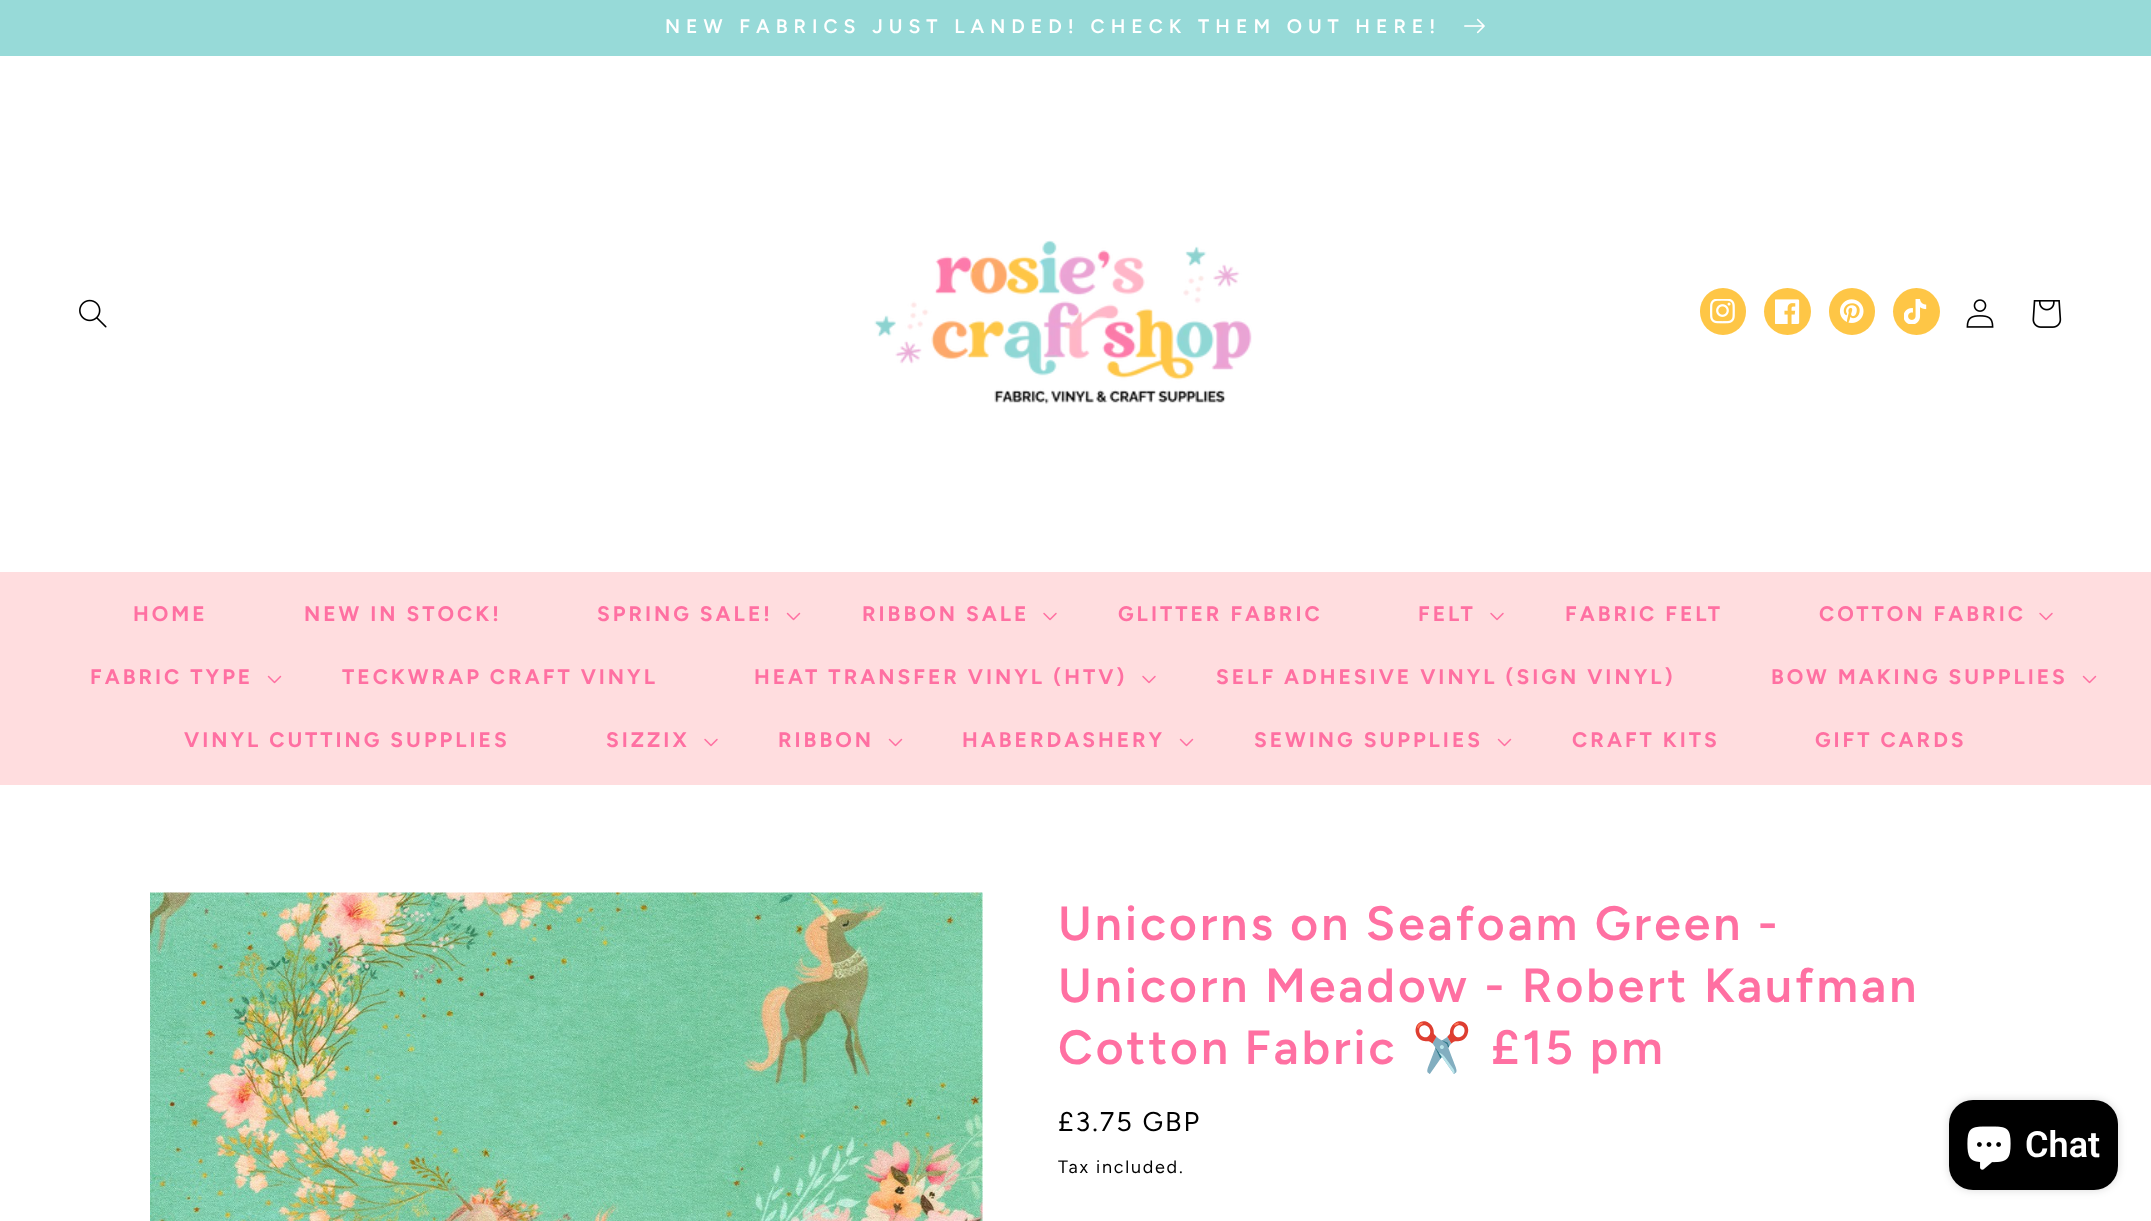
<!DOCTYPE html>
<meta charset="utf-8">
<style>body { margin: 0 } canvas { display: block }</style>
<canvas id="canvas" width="2151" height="1221"></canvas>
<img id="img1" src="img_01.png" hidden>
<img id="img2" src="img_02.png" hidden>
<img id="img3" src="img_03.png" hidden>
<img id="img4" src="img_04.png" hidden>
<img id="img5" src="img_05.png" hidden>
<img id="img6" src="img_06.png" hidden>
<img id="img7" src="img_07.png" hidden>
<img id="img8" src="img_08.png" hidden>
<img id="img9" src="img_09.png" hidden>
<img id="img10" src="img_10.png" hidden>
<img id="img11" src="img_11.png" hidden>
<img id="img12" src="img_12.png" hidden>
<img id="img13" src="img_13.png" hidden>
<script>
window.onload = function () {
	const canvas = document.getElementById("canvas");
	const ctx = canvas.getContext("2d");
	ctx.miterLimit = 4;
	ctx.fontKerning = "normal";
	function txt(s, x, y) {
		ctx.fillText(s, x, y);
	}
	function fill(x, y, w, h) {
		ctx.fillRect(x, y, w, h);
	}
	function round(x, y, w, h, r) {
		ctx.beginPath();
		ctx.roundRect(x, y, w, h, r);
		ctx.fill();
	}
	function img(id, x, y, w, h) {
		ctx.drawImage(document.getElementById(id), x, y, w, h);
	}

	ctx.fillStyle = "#FFFFFF";
	fill(0, 0, 2151, 1221);
	ctx.fillStyle = "#97DAD8";
	fill(0, 0, 2151, 56);
	img("img1", 1464, 18, 21, 16);
	img("img2", 79, 299, 28, 29);
	img("img3", 874, 240, 378, 164);
	ctx.fillStyle = "#FEC646";
	round(1700, 288, 46, 47, 23);
	img("img4", 1710, 299, 25, 25);
	ctx.beginPath();
	ctx.arc(1787.5, 311.5, 23.5, 0, Math.PI * 2);
	ctx.fill();
	img("img5", 1775, 299, 25, 25);
	round(1829, 288, 46, 47, 23);
	img("img6", 1839, 299, 25, 24);
	ctx.beginPath();
	ctx.arc(1916.5, 311.5, 23.5, 0, Math.PI * 2);
	ctx.fill();
	img("img7", 1904, 299, 23, 25);
	img("img8", 1966, 299, 28, 29);
	img("img9", 2032, 300, 30, 28);
	ctx.fillStyle = "#FFDDDF";
	fill(0, 572, 2151, 213);
	img("img10", 786, 612, 15, 9);
	img("img11", 1043, 612, 14, 9);
	img("img11", 1490, 612, 14, 9);
	img("img11", 2039, 612, 14, 9);
	img("img10", 267, 675, 15, 9);
	img("img11", 1142, 675, 14, 9);
	img("img10", 2082, 675, 15, 9);
	img("img11", 704, 738, 14, 9);
	img("img10", 888, 738, 15, 9);
	img("img10", 1179, 738, 15, 9);
	img("img10", 1497, 738, 15, 9);
	img("img12", 150, 892, 833, 329);
	ctx.fillStyle = "rgba(0, 0, 0, 0.15)";
	ctx.filter = "blur(4px)";
	ctx.beginPath();
	ctx.roundRect(1949, 1100, 169, 90, 24);
	ctx.fill();
	ctx.filter = "none";
	ctx.fillStyle = "#000000";
	round(1949, 1100, 169, 90, 24);
	img("img13", 1967, 1126, 44, 44);
	ctx.letterSpacing = "6px";
	ctx.font = "600 19.5px Figtree";
	ctx.fillStyle = "#FFFFFF";
	txt("NEW FABRICS JUST LANDED! CHECK THEM OUT HERE!", 665, 33);
	ctx.letterSpacing = "3px";
	ctx.font = "bold 21px Figtree";
	ctx.fillStyle = "#FF70A2";
	txt("HOME", 133, 621);
	txt("NEW IN STOCK!", 304, 621);
	txt("SPRING SALE!", 597, 621);
	txt("RIBBON SALE", 862, 621);
	txt("GLITTER FABRIC", 1118, 621);
	txt("FELT", 1418, 621);
	txt("FABRIC FELT", 1565, 621);
	txt("COTTON FABRIC", 1819, 621);
	txt("FABRIC TYPE", 90, 684);
	txt("TECKWRAP CRAFT VINYL", 342, 684);
	txt("HEAT TRANSFER VINYL (HTV)", 754, 684);
	txt("SELF ADHESIVE VINYL (SIGN VINYL)", 1216, 684);
	txt("BOW MAKING SUPPLIES", 1771, 684);
	txt("VINYL CUTTING SUPPLIES", 184, 747);
	txt("SIZZIX", 606, 747);
	txt("RIBBON", 778, 747);
	txt("HABERDASHERY", 962, 747);
	txt("SEWING SUPPLIES", 1254, 747);
	txt("CRAFT KITS", 1572, 747);
	txt("GIFT CARDS", 1815, 747);
	ctx.font = "600 48px Figtree";
	txt("Unicorns on Seafoam Green -", 1058, 940);
	txt("Unicorn Meadow - Robert Kaufman", 1058, 1002);
	ctx.wordSpacing = "-1px";
	txt("Cotton Fabric", 1058, 1064);
	ctx.wordSpacing = "0px";
	ctx.font = "bold 48px Noto Color Emoji";
	txt("✂️", 1412, 1064);
	ctx.wordSpacing = "-1px";
	ctx.font = "600 48px Figtree";
	txt("£15 pm", 1491, 1064);
	ctx.letterSpacing = "2px";
	ctx.wordSpacing = "0px";
	ctx.font = "27px Figtree";
	ctx.fillStyle = "#000000";
	txt("£3.75 GBP", 1058, 1131);
	ctx.letterSpacing = "1.75px";
	ctx.font = "18px Figtree";
	txt("Tax included.", 1058, 1173);
	ctx.letterSpacing = "0px";
	ctx.font = "600 36px Roboto";
	ctx.fillStyle = "#FFFFFF";
	txt("Chat", 2025, 1157);
};
</script>
